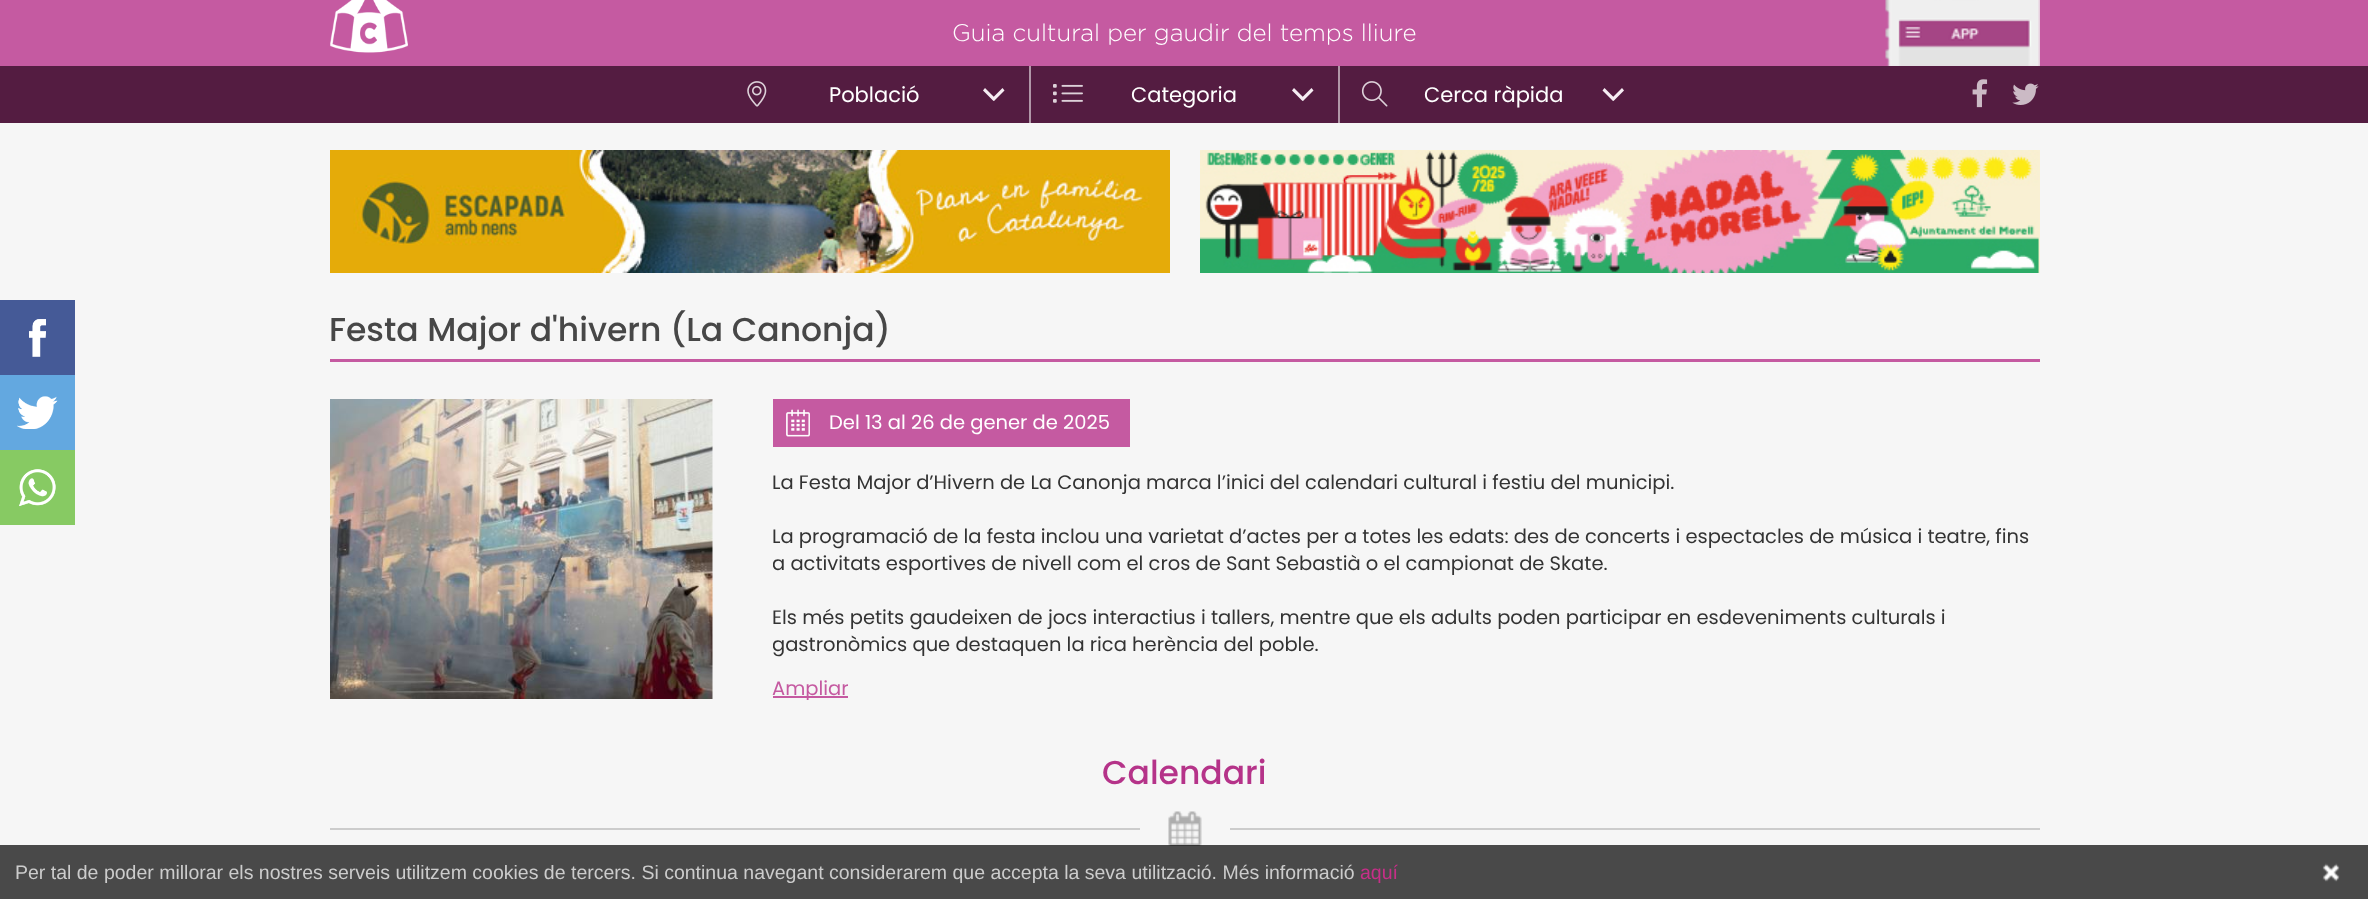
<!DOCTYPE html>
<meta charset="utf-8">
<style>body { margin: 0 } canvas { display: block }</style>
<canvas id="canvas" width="2368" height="899"></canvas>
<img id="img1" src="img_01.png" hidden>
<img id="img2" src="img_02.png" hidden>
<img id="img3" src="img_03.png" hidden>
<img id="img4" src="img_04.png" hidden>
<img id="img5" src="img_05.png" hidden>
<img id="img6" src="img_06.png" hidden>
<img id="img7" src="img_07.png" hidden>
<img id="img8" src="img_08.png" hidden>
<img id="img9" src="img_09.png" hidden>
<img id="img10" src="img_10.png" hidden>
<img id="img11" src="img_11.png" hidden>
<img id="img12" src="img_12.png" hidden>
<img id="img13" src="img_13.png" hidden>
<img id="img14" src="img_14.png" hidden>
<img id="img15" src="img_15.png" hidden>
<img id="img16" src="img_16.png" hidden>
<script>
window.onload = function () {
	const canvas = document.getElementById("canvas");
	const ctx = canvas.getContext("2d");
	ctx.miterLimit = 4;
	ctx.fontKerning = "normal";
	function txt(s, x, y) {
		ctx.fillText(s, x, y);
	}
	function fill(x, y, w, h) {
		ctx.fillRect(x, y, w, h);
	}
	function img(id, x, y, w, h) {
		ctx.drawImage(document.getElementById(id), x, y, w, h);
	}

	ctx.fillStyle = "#F6F6F6";
	fill(0, 0, 2368, 899);
	ctx.fillStyle = "#C55AA1";
	fill(0, 0, 2368, 66);
	img("img1", 330, 0, 78, 53);
	img("img2", 1885, 0, 155, 66);
	ctx.fillStyle = "#541C41";
	fill(0, 66, 2368, 57);
	img("img3", 1972, 79, 16, 29);
	img("img4", 2012, 83, 27, 22);
	ctx.fillStyle = "#B197A8";
	fill(1029, 66, 2, 57);
	img("img5", 747, 81, 20, 26);
	ctx.fillStyle = "#F6EDF3";
	ctx.beginPath();
	ctx.moveTo(985, 88);
	ctx.lineTo(995.5, 98.5);
	ctx.lineTo(993.5, 101);
	ctx.lineTo(983, 90.5);
	ctx.closePath();
	ctx.fill();
	ctx.beginPath();
	ctx.moveTo(992, 98.5);
	ctx.lineTo(1002.5, 88);
	ctx.lineTo(1004.5, 90.5);
	ctx.lineTo(994, 101);
	ctx.closePath();
	ctx.fill();
	ctx.fillStyle = "#B197A8";
	fill(1338, 66, 2, 57);
	img("img6", 1053, 84, 30, 19);
	ctx.fillStyle = "#F6EDF3";
	ctx.beginPath();
	ctx.moveTo(1294, 88);
	ctx.lineTo(1304.5, 98.5);
	ctx.lineTo(1302.5, 101);
	ctx.lineTo(1292, 90.5);
	ctx.closePath();
	ctx.fill();
	ctx.beginPath();
	ctx.moveTo(1301, 98.5);
	ctx.lineTo(1311.5, 88);
	ctx.lineTo(1313.5, 90.5);
	ctx.lineTo(1303, 101);
	ctx.closePath();
	ctx.fill();
	img("img7", 1361, 81, 27, 26);
	ctx.beginPath();
	ctx.moveTo(1604.5, 88);
	ctx.lineTo(1615, 98.5);
	ctx.lineTo(1613, 101);
	ctx.lineTo(1602.5, 90.5);
	ctx.closePath();
	ctx.fill();
	ctx.beginPath();
	ctx.moveTo(1611.5, 98.5);
	ctx.lineTo(1622, 88);
	ctx.lineTo(1624, 90.5);
	ctx.lineTo(1613.5, 101);
	ctx.closePath();
	ctx.fill();
	img("img8", 330, 150, 840, 123);
	img("img9", 1200, 150, 840, 123);
	ctx.fillStyle = "#455A97";
	fill(0, 300, 75, 75);
	img("img10", 29, 319, 17, 38);
	ctx.fillStyle = "#63A8E0";
	fill(0, 375, 75, 75);
	img("img11", 17, 396, 41, 33);
	ctx.fillStyle = "#87CA63";
	fill(0, 450, 75, 75);
	img("img12", 19, 469, 37, 38);
	ctx.fillStyle = "#C55AA1";
	fill(330, 359, 1710, 3);
	img("img13", 330, 399, 383, 300);
	fill(773, 399, 357, 48);
	img("img14", 786, 409, 24, 28);
	fill(773, 696, 75, 2);
	ctx.fillStyle = "#CCCCCC";
	fill(330, 828, 1710, 2);
	ctx.fillStyle = "#F6F6F6";
	fill(1140, 828, 90, 2);
	img("img15", 1168, 811, 34, 35);
	ctx.fillStyle = "rgba(0, 0, 0, 0.7)";
	fill(0, 845, 2368, 54);
	img("img16", 2322, 863, 18, 19);
	ctx.font = "300 24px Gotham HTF";
	ctx.fillStyle = "#FFFFFF";
	txt("Guia cultural per gaudir del temps lliure", 952, 41);
	ctx.font = "21px Poppins";
	txt("Població", 829, 102);
	txt("Categoria", 1131, 102);
	txt("Cerca ràpida", 1424, 102);
	ctx.font = "500 33px Poppins";
	ctx.fillStyle = "#474747";
	txt("Festa Major d'hivern (La Canonja)", 329, 341);
	ctx.font = "19.5px Poppins";
	ctx.fillStyle = "#FFFFFF";
	txt("Del 13 al 26 de gener de 2025", 829, 429);
	ctx.fillStyle = "#333333";
	txt("La Festa Major d’Hivern de La Canonja marca l’inici del calendari cultural i festiu del municipi.", 772, 489);
	txt("La programació de la festa inclou una varietat d’actes per a totes les edats: des de concerts i espectacles de música i teatre, fins", 772, 543);
	ctx.save();
	ctx.beginPath();
	ctx.rect(773, 470, 1267, 190);
	ctx.clip();
	txt("a activitats esportives de nivell com el cros de Sant Sebastià o el campionat de Skate.", 772, 570);
	ctx.restore();
	txt("Els més petits gaudeixen de jocs interactius i tallers, mentre que els adults poden participar en esdeveniments culturals i", 772, 624);
	ctx.save();
	ctx.beginPath();
	ctx.rect(773, 470, 1267, 190);
	ctx.clip();
	txt("gastronòmics que destaquen la rica herència del poble.", 772, 651);
	ctx.restore();
	ctx.fillStyle = "#C55AA1";
	txt("Ampliar", 772, 695);
	ctx.font = "500 33px Poppins";
	ctx.fillStyle = "#B53389";
	txt("Calendari", 1102, 784);
	ctx.font = "19.5px Liberation Sans";
	ctx.fillStyle = "#CCCCCC";
	txt("Per tal de poder millorar els nostres serveis utilitzem cookies de tercers. Si continua navegant considerarem que accepta la seva utilització. Més informació", 15, 879);
	ctx.fillStyle = "#C62F88";
	txt("aquí", 1360, 879);
};
</script>
